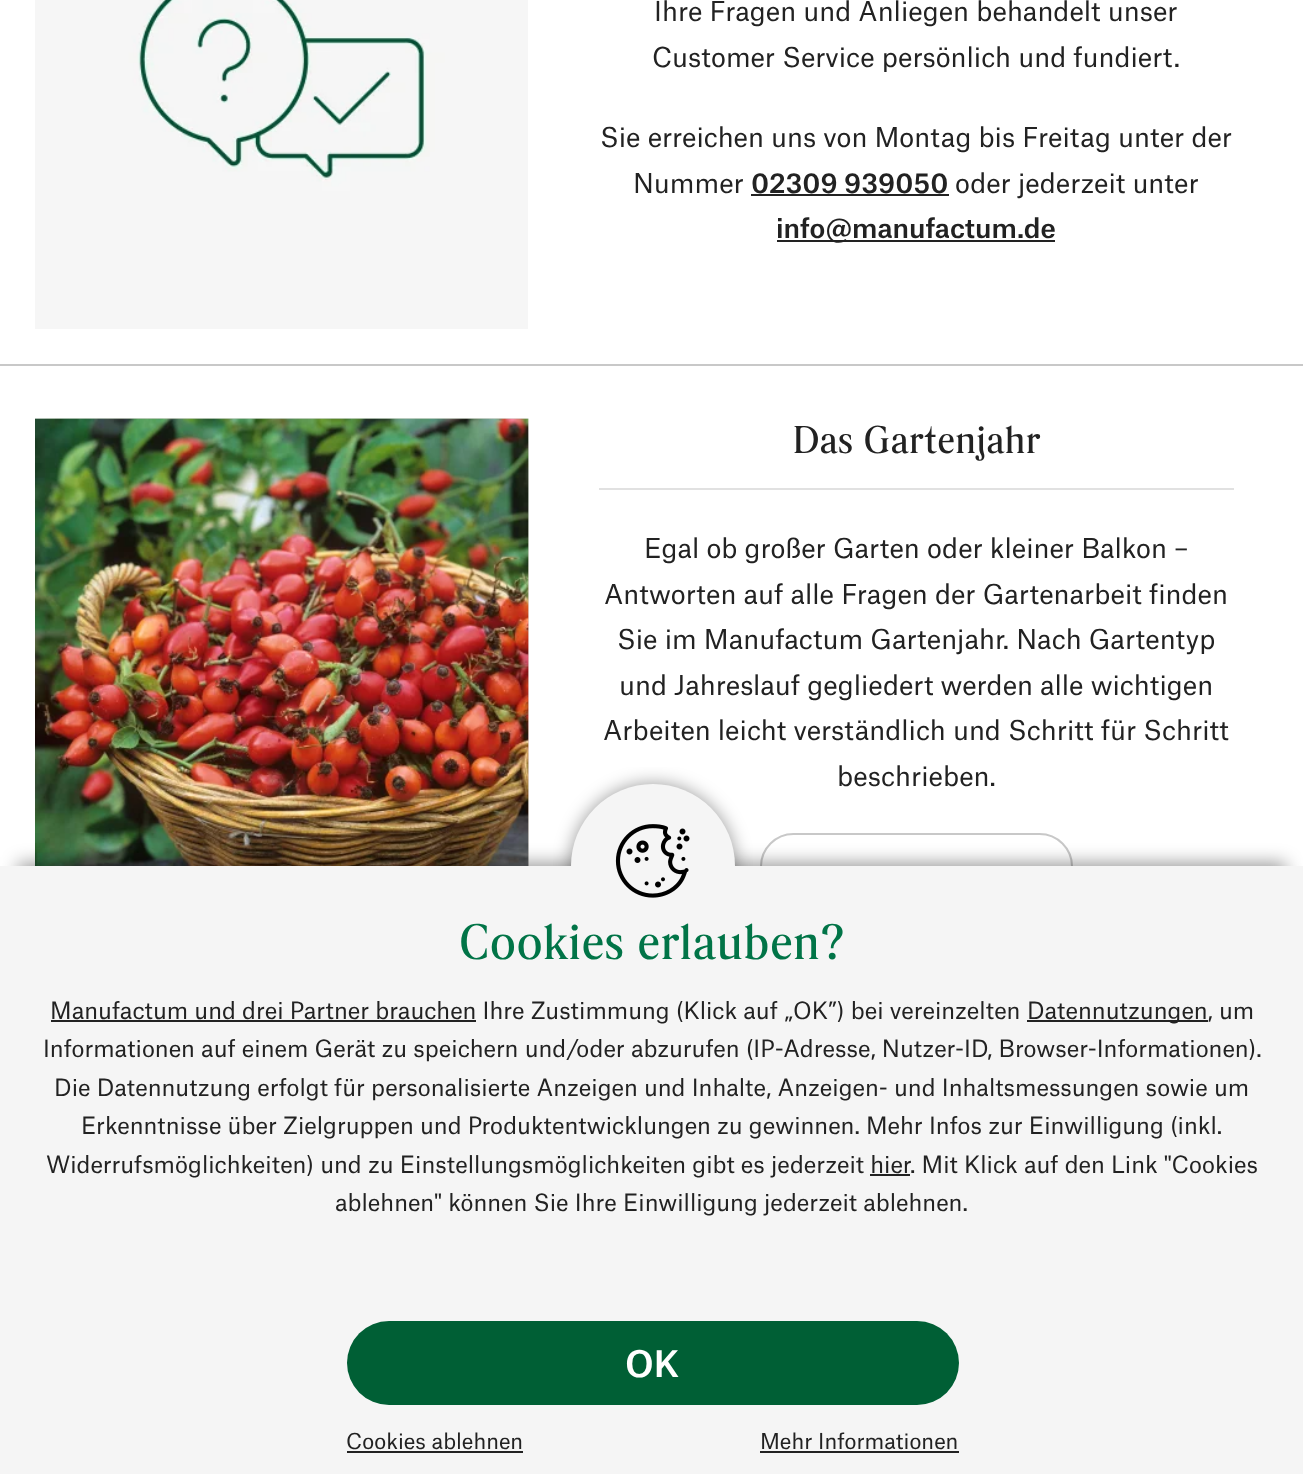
<!DOCTYPE html>
<meta charset="utf-8">
<style>body { margin: 0 } canvas { display: block }</style>
<canvas id="canvas" width="1303" height="1474"></canvas>
<img id="img1" src="img_01.png" hidden>
<img id="img2" src="img_02.png" hidden>
<img id="img3" src="img_03.png" hidden>
<img id="img4" src="img_04.png" hidden>
<script>
window.onload = function () {
	const canvas = document.getElementById("canvas");
	const ctx = canvas.getContext("2d");
	ctx.miterLimit = 4;
	ctx.fontKerning = "normal";
	function txt(s, x, y) {
		ctx.fillText(s, x, y);
	}
	function fill(x, y, w, h) {
		ctx.fillRect(x, y, w, h);
	}
	function round(x, y, w, h, r) {
		ctx.beginPath();
		ctx.roundRect(x, y, w, h, r);
		ctx.fill();
	}
	function img(id, x, y, w, h) {
		ctx.drawImage(document.getElementById(id), x, y, w, h);
	}

	ctx.fillStyle = "#FFFFFF";
	fill(0, 0, 1303, 1474);
	ctx.fillStyle = "#C8C8C8";
	fill(0, 364, 1303, 2);
	img("img1", 35, 0, 493, 329);
	ctx.fillStyle = "#222222";
	fill(751, 194, 198, 2);
	fill(777, 240, 278, 2);
	img("img2", 35, 418, 494, 448);
	img("img3", 35, 418, 494, 448);
	ctx.fillStyle = "#E1E1E1";
	fill(599, 488, 635, 2);
	ctx.beginPath();
	ctx.roundRect(761, 834, 311, 65, 32.5);
	ctx.strokeStyle = "#C8C8C8";
	ctx.lineWidth = 2;
	ctx.stroke();
	ctx.fillStyle = "rgba(0, 0, 0, 0.4)";
	ctx.filter = "blur(9px)";
	ctx.beginPath();
	ctx.rect(18, 863, 1268, 574);
	ctx.fill();
	ctx.filter = "none";
	ctx.fillStyle = "#F5F5F5";
	fill(0, 866, 1303, 608);
	ctx.save();
	ctx.beginPath();
	ctx.rect(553, 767, 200, 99);
	ctx.clip();
	ctx.fillStyle = "rgba(0, 0, 0, 0.4)";
	ctx.filter = "blur(9px)";
	ctx.beginPath();
	ctx.roundRect(571, 784, 164, 165, 82);
	ctx.fill();
	ctx.filter = "none";
	ctx.restore();
	ctx.beginPath();
	ctx.roundRect(571, 784, 164, 82, [82, 82, 0, 0]);
	ctx.fill();
	img("img4", 615, 824, 75, 74);
	ctx.fillStyle = "#222222";
	fill(51, 1020, 425, 2);
	fill(1027, 1020, 181, 2);
	fill(870, 1174, 40, 2);
	ctx.fillStyle = "#005F35";
	round(347, 1321, 612, 84, 42);
	ctx.fillStyle = "#222222";
	fill(347, 1451, 176, 2);
	fill(760, 1451, 199, 2);
	ctx.font = "26.25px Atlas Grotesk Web";
	txt("Ihre Fragen und Anliegen behandelt unser", 654, 21);
	txt("Customer Service persönlich und fundiert.", 652, 67);
	txt("Sie erreichen uns von Montag bis Freitag unter der", 600, 147);
	txt("Nummer", 633, 193);
	ctx.font = "500 26.25px Atlas Grotesk Web";
	txt("02309 939050", 751, 193);
	ctx.font = "26.25px Atlas Grotesk Web";
	txt("oder jederzeit unter", 955, 193);
	ctx.font = "500 26.25px Atlas Grotesk Web";
	txt("info@manufactum.de", 776, 238);
	ctx.font = "500 36.75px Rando";
	txt("Das Gartenjahr", 793, 453);
	ctx.font = "26.25px Atlas Grotesk Web";
	txt("Egal ob großer Garten oder kleiner Balkon –", 644, 558);
	txt("Antworten auf alle Fragen der Gartenarbeit finden", 604, 604);
	txt("Sie im Manufactum Gartenjahr. Nach Gartentyp", 617, 649);
	txt("und Jahreslauf gegliedert werden alle wichtigen", 619, 695);
	txt("Arbeiten leicht verständlich und Schritt für Schritt", 603, 740);
	txt("beschrieben.", 837, 786);
	ctx.font = "500 47.25px Rando";
	ctx.fillStyle = "#017447";
	txt("Cookies erlauben?", 459, 959);
	ctx.font = "22.75px Atlas Grotesk Web";
	ctx.fillStyle = "#222222";
	txt("Manufactum und drei Partner brauchen Ihre Zustimmung (Klick auf „OK”) bei vereinzelten", 50, 1019);
	txt("Datennutzungen, um", 1027, 1019);
	txt("Informationen auf einem Gerät zu speichern und/oder abzurufen (IP-Adresse, Nutzer-ID, Browser-Informationen).", 43, 1057);
	txt("Die Datennutzung erfolgt für personalisierte Anzeigen und Inhalte, Anzeigen- und Inhaltsmessungen sowie um", 54, 1096);
	txt("Erkenntnisse über Zielgruppen und Produktentwicklungen zu gewinnen. Mehr Infos zur Einwilligung (inkl.", 81, 1134);
	txt("Widerrufsmöglichkeiten) und zu Einstellungsmöglichkeiten gibt es jederzeit hier", 46, 1173);
	txt(". Mit Klick auf den Link \"Cookies", 910, 1173);
	txt("ablehnen\" können Sie Ihre Einwilligung jederzeit ablehnen.", 335, 1211);
	ctx.font = "500 35px Atlas Grotesk Web";
	ctx.fillStyle = "#FFFFFF";
	txt("OK", 625, 1377);
	ctx.font = "21px Atlas Grotesk Web";
	ctx.fillStyle = "#222222";
	txt("Cookies ablehnen", 346, 1449);
	txt("Mehr Informationen", 760, 1449);
};
</script>
